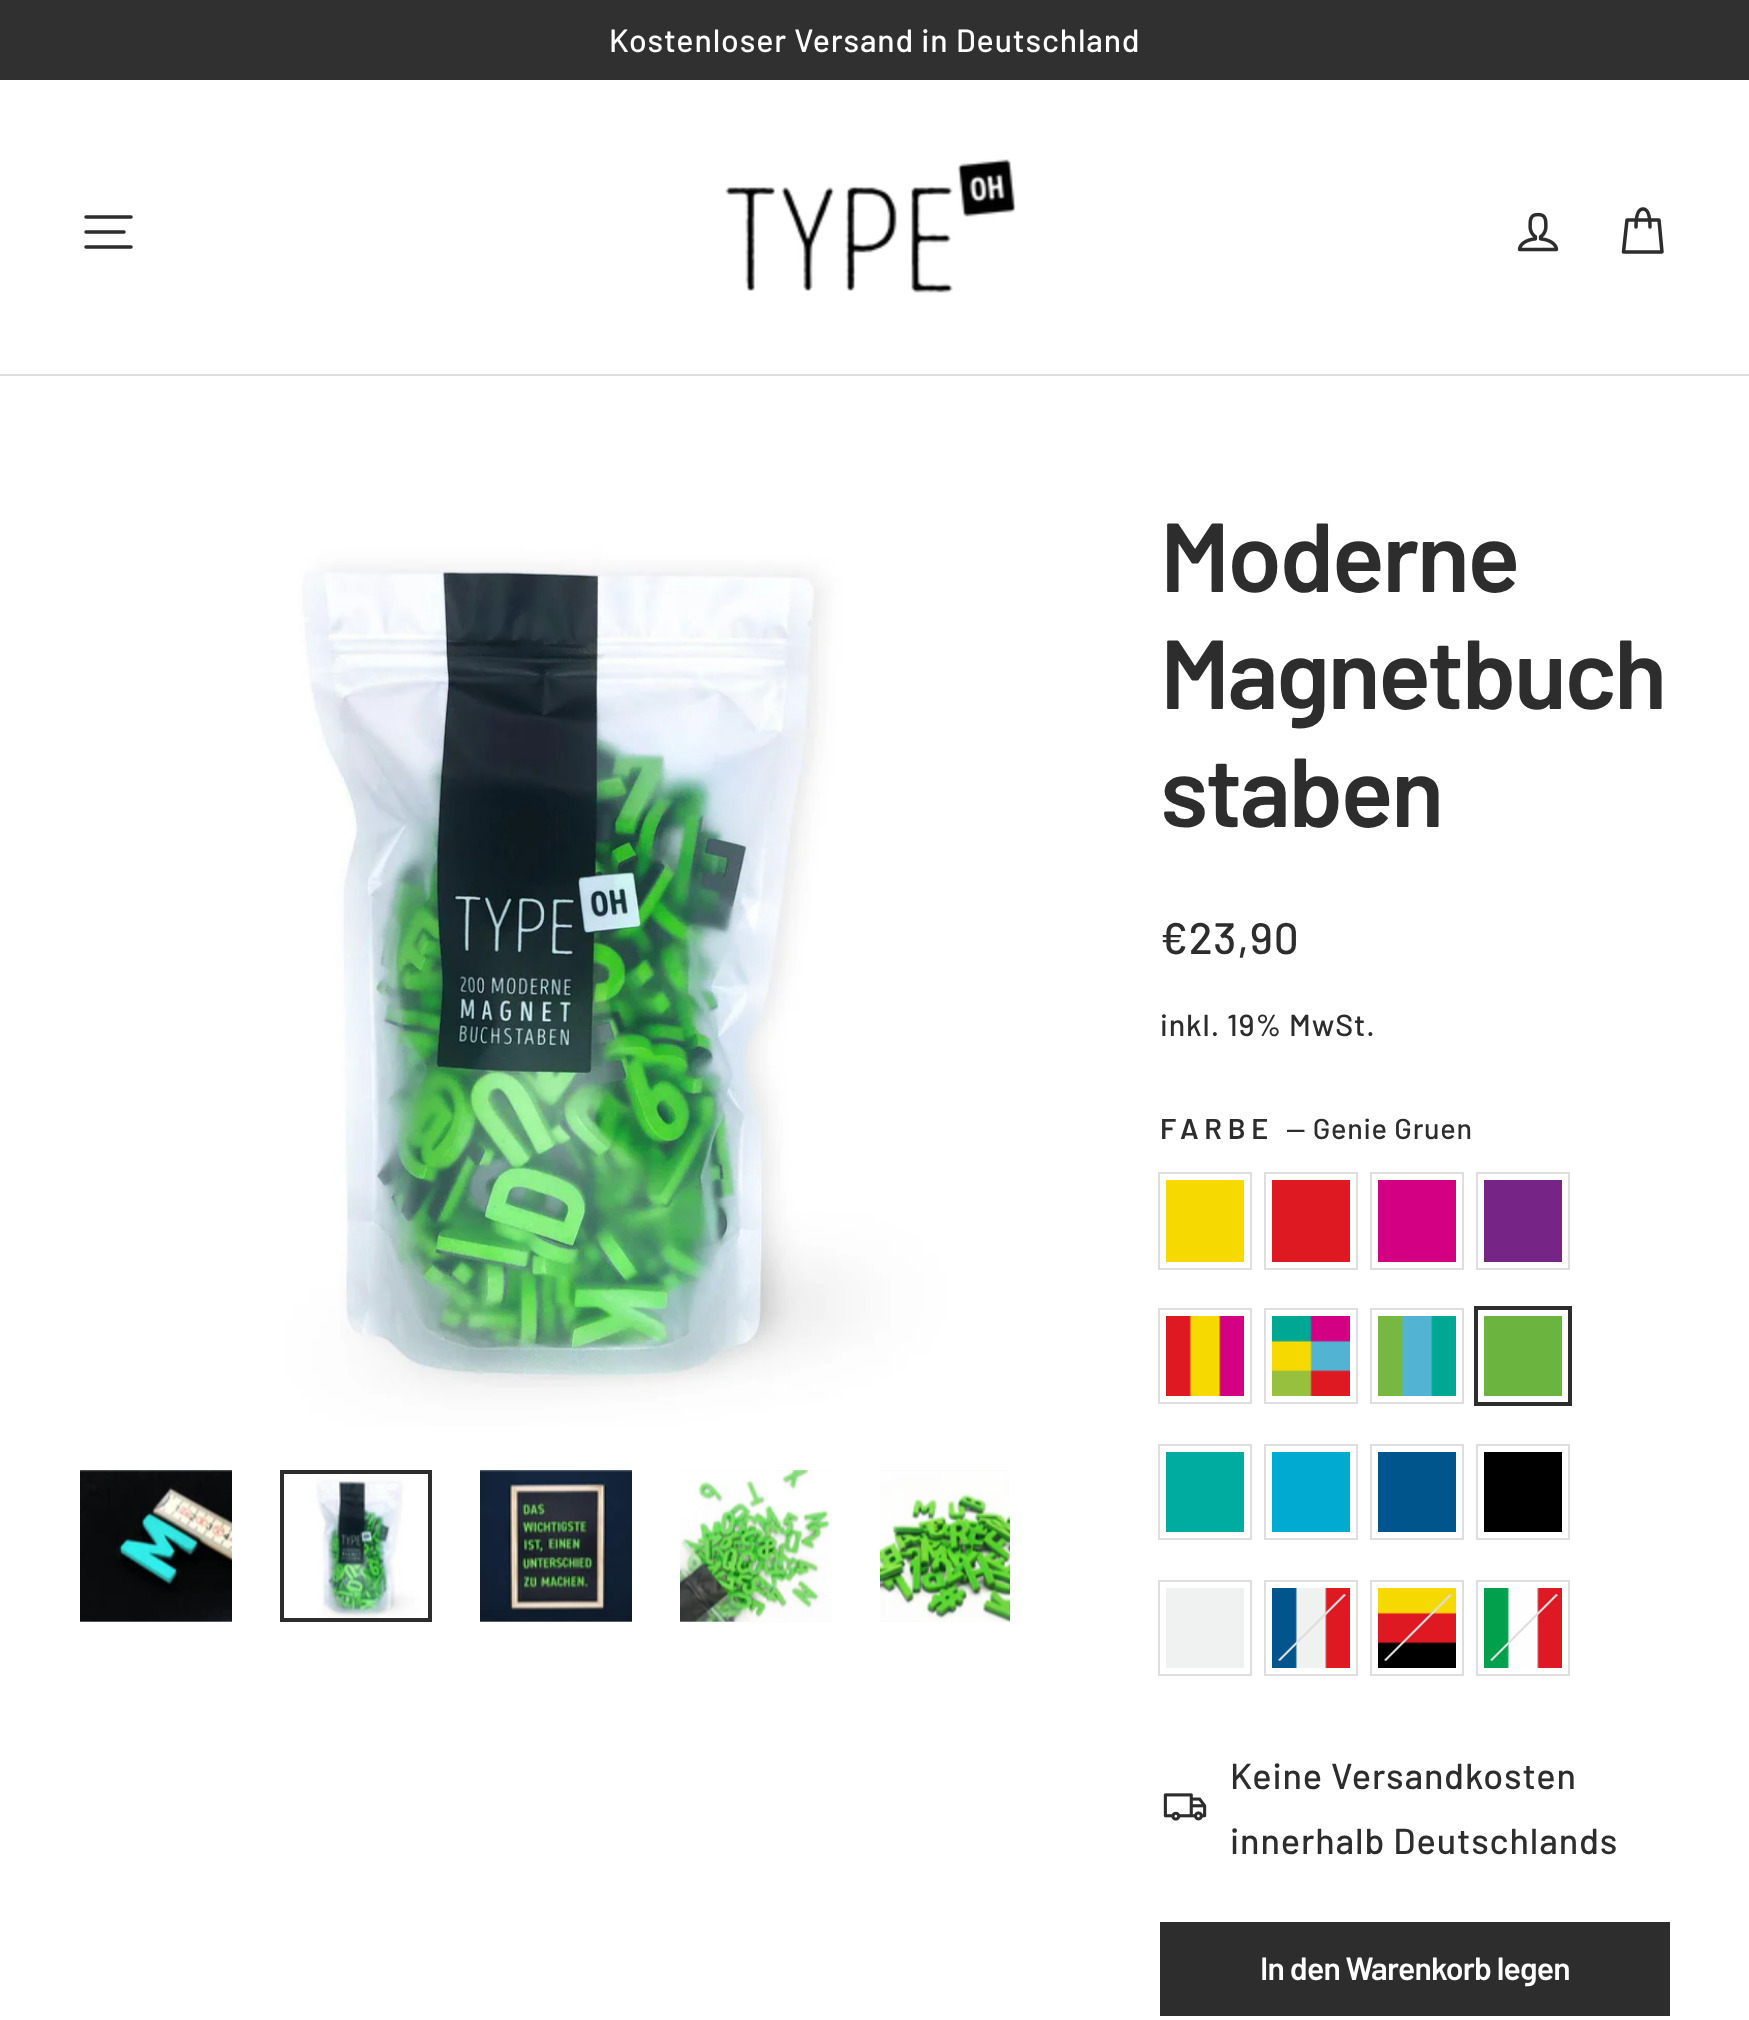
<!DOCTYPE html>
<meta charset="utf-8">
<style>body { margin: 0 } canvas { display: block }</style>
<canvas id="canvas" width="1749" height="2020"></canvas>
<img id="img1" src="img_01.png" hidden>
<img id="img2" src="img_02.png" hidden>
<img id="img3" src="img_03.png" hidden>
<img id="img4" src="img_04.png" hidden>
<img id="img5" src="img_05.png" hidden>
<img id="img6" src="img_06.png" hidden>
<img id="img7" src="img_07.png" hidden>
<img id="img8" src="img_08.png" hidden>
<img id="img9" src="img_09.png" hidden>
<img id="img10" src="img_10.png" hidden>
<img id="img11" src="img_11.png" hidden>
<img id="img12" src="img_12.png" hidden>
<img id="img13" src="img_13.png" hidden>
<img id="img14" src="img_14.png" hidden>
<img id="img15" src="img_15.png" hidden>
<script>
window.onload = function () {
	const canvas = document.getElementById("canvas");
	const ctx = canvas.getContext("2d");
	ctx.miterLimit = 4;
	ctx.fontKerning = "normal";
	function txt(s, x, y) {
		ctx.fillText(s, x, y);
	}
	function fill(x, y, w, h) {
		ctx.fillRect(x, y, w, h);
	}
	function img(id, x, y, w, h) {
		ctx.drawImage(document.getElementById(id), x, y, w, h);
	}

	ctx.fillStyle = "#FFFFFF";
	fill(0, 0, 1749, 2020);
	ctx.fillStyle = "#303030";
	fill(0, 0, 1749, 80);
	ctx.fillStyle = "#DEDEDE";
	fill(0, 374, 1749, 2);
	ctx.beginPath();
	ctx.moveTo(86, 217);
	ctx.lineTo(131, 217);
	ctx.moveTo(86, 232);
	ctx.lineTo(124, 232);
	ctx.moveTo(86, 247);
	ctx.lineTo(131, 247);
	ctx.strokeStyle = "#2D2D2D";
	ctx.lineWidth = 3.5;
	ctx.lineCap = "round";
	ctx.lineJoin = "round";
	ctx.stroke();
	img("img1", 725, 159, 291, 134);
	img("img2", 1517, 212, 42, 40);
	ctx.beginPath();
	ctx.moveTo(1636, 227);
	ctx.bezierCurveTo(1636, 213, 1639, 209, 1643, 209);
	ctx.bezierCurveTo(1647, 209, 1650, 213, 1650, 227);
	ctx.moveTo(1627, 220);
	ctx.lineTo(1659, 220);
	ctx.lineTo(1662, 252);
	ctx.lineTo(1623.5, 252);
	ctx.closePath();
	ctx.stroke();
	img("img3", 80, 496, 930, 930);
	ctx.fillStyle = "#F4F4F4";
	fill(80, 1470, 152, 152);
	img("img4", 80, 1470, 152, 152);
	img("img5", 284, 1474, 144, 144);
	ctx.lineWidth = 4;
	ctx.lineJoin = "miter";
	ctx.strokeRect(282, 1472, 148, 148);
	fill(480, 1470, 152, 152);
	img("img6", 480, 1470, 152, 152);
	fill(680, 1470, 152, 152);
	img("img7", 680, 1470, 152, 152);
	fill(880, 1470, 130, 152);
	img("img8", 880, 1470, 130, 152);
	ctx.strokeStyle = "#DEDEDE";
	ctx.lineWidth = 2;
	ctx.strokeRect(1159, 1173, 92, 96);
	ctx.fillStyle = "#F5D900";
	fill(1166, 1180, 78, 82);
	ctx.strokeRect(1265, 1173, 92, 96);
	ctx.fillStyle = "#DF1922";
	fill(1272, 1180, 78, 82);
	ctx.strokeRect(1371, 1173, 92, 96);
	ctx.fillStyle = "#D40083";
	fill(1378, 1180, 78, 82);
	ctx.strokeRect(1477, 1173, 92, 96);
	ctx.fillStyle = "#772487";
	fill(1484, 1180, 78, 82);
	ctx.strokeRect(1159, 1309, 92, 94);
	img("img9", 1166, 1316, 78, 80);
	ctx.strokeRect(1265, 1309, 92, 94);
	img("img10", 1272, 1316, 78, 80);
	ctx.strokeRect(1371, 1309, 92, 94);
	img("img11", 1378, 1316, 78, 80);
	ctx.strokeStyle = "#2D2D2D";
	ctx.lineWidth = 4;
	ctx.strokeRect(1476, 1308, 94, 96);
	ctx.fillStyle = "#6BB43F";
	fill(1484, 1316, 78, 80);
	ctx.strokeStyle = "#DEDEDE";
	ctx.lineWidth = 2;
	ctx.strokeRect(1159, 1445, 92, 94);
	ctx.fillStyle = "#00ACA0";
	fill(1166, 1452, 78, 80);
	ctx.strokeRect(1265, 1445, 92, 94);
	ctx.fillStyle = "#00AAD1";
	fill(1272, 1452, 78, 80);
	ctx.strokeRect(1371, 1445, 92, 94);
	ctx.fillStyle = "#00558C";
	fill(1378, 1452, 78, 80);
	ctx.strokeRect(1477, 1445, 92, 94);
	ctx.fillStyle = "#000000";
	fill(1484, 1452, 78, 80);
	ctx.strokeRect(1159, 1581, 92, 94);
	ctx.fillStyle = "#F0F1F1";
	fill(1166, 1588, 78, 80);
	ctx.strokeRect(1265, 1581, 92, 94);
	img("img12", 1272, 1588, 78, 80);
	ctx.fillStyle = "#DEDEDE";
	ctx.beginPath();
	ctx.moveTo(1344, 1594);
	ctx.lineTo(1346, 1595);
	ctx.lineTo(1280, 1661);
	ctx.lineTo(1278, 1660);
	ctx.closePath();
	ctx.fill();
	ctx.strokeRect(1371, 1581, 92, 94);
	img("img13", 1378, 1588, 78, 80);
	ctx.beginPath();
	ctx.moveTo(1450, 1594);
	ctx.lineTo(1452, 1595);
	ctx.lineTo(1386, 1661);
	ctx.lineTo(1384, 1660);
	ctx.closePath();
	ctx.fill();
	ctx.strokeRect(1477, 1581, 92, 94);
	img("img14", 1484, 1588, 78, 80);
	ctx.beginPath();
	ctx.moveTo(1556, 1594);
	ctx.lineTo(1558, 1595);
	ctx.lineTo(1492, 1661);
	ctx.lineTo(1490, 1660);
	ctx.closePath();
	ctx.fill();
	img("img15", 1163, 1793, 44, 28);
	ctx.fillStyle = "#2D2D2D";
	fill(1160, 1922, 510, 94);
	ctx.letterSpacing = "0.9px";
	ctx.font = "500 32px Barlow";
	ctx.fillStyle = "#FFFFFF";
	txt("Kostenloser Versand in Deutschland", 609, 52);
	ctx.letterSpacing = "-2.5px";
	ctx.font = "600 98px Barlow";
	ctx.fillStyle = "#2D2D2D";
	txt("Moderne", 1160, 592);
	txt("Magnetbuch", 1160, 709);
	txt("staben", 1160, 827);
	ctx.letterSpacing = "0.9px";
	ctx.font = "500 44px Barlow";
	txt("€23,90", 1160, 954);
	ctx.font = "500 30.5px Barlow";
	txt("inkl. 19% MwSt.", 1160, 1036);
	ctx.letterSpacing = "5.75px";
	ctx.font = "600 28.75px Barlow";
	txt("FARBE", 1160, 1139);
	ctx.letterSpacing = "0.75px";
	ctx.font = "500 28.75px Barlow";
	txt("— Genie Gruen", 1286, 1139);
	ctx.letterSpacing = "0.9px";
	ctx.font = "500 36px Barlow";
	txt("Keine Versandkosten", 1230, 1789);
	txt("innerhalb Deutschlands", 1230, 1854);
	ctx.letterSpacing = "-0.8px";
	ctx.font = "600 32px Barlow";
	ctx.fillStyle = "#FFFFFF";
	txt("In den Warenkorb legen", 1260, 1980);
};
</script>
